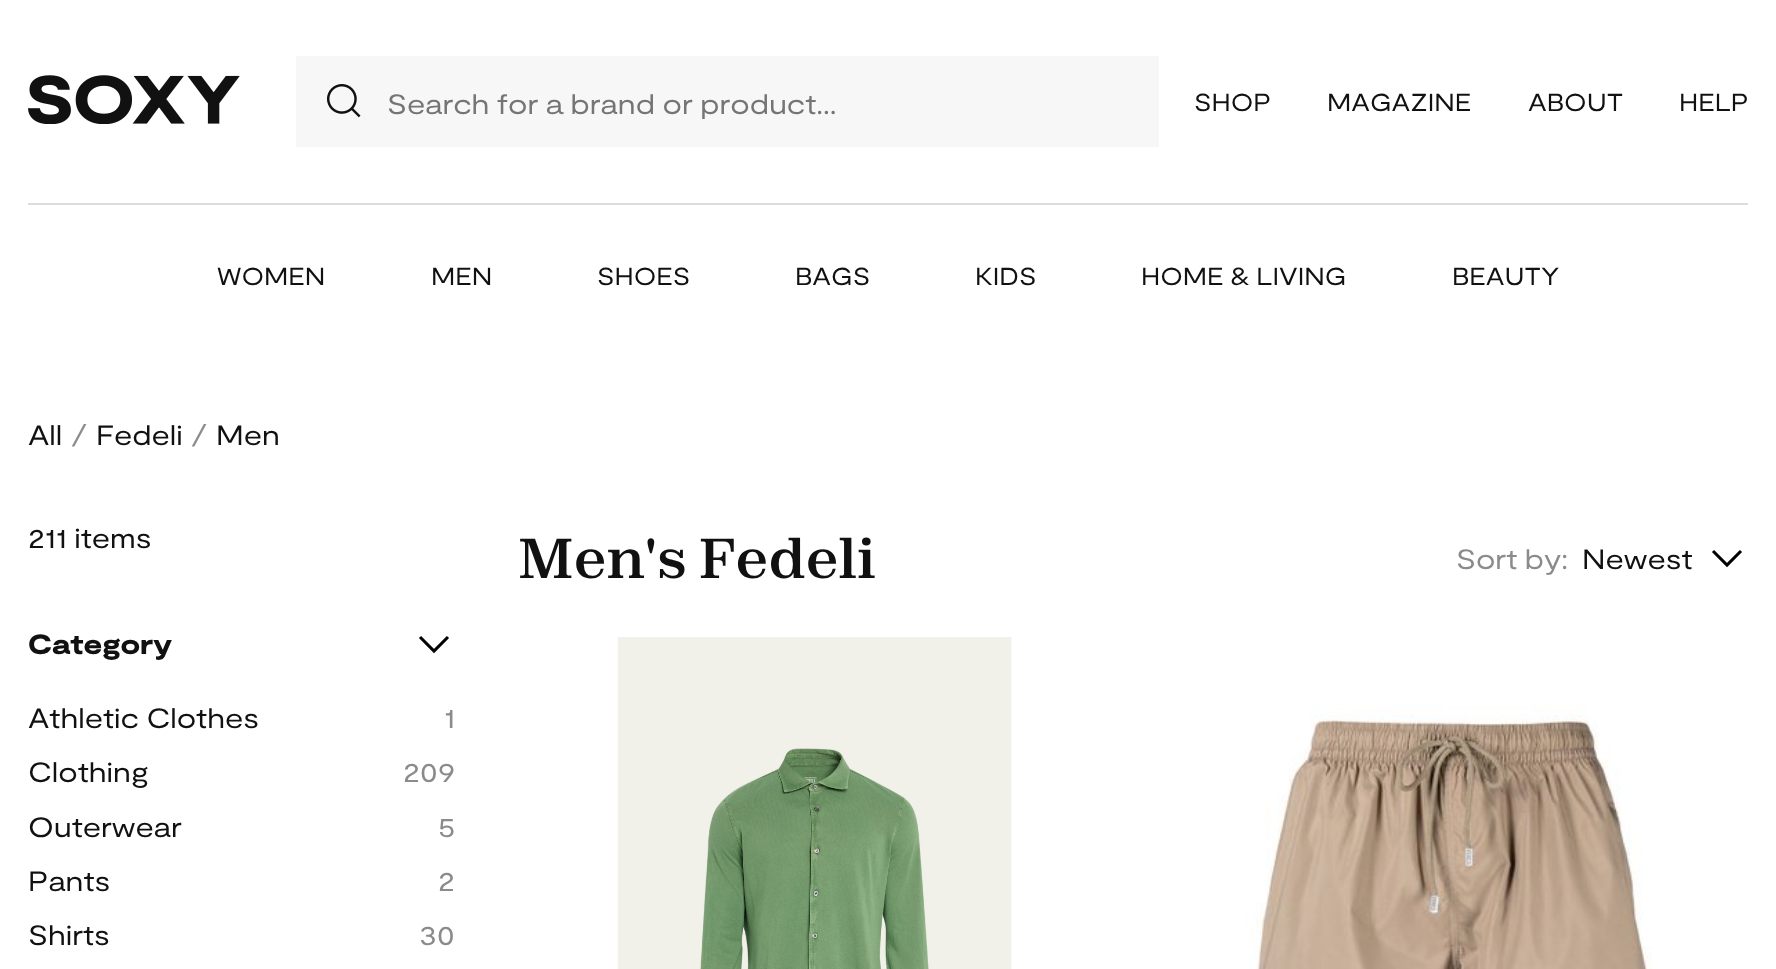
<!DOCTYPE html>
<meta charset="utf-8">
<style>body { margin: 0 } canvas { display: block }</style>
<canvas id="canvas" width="1776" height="969"></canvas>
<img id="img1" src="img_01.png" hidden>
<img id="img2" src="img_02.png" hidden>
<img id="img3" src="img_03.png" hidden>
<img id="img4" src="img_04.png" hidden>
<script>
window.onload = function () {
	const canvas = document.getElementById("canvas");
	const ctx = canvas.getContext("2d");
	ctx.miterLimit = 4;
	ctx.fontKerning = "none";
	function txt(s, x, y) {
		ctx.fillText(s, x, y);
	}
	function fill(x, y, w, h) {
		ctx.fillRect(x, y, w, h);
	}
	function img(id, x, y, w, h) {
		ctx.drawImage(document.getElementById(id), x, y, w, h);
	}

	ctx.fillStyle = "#FFFFFF";
	fill(0, 0, 1776, 969);
	img("img1", 28, 75, 212, 49);
	ctx.fillStyle = "#F7F7F7";
	fill(296, 56, 863, 91);
	img("img2", 327, 84, 34, 34);
	ctx.fillStyle = "#DCDCDC";
	fill(28, 203, 1720, 2);
	ctx.beginPath();
	ctx.moveTo(448, 637);
	ctx.lineTo(434, 651);
	ctx.lineTo(420, 637);
	ctx.strokeStyle = "#000000";
	ctx.lineWidth = 3.1;
	ctx.stroke();
	ctx.beginPath();
	ctx.moveTo(1741, 551);
	ctx.lineTo(1727, 565);
	ctx.lineTo(1713, 551);
	ctx.stroke();
	img("img3", 617, 637, 395, 332);
	img("img4", 1245, 704, 408, 265);
	ctx.save();
	ctx.beginPath();
	ctx.rect(387, 86, 772, 33);
	ctx.clip();
	ctx.font = "28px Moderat";
	ctx.fillStyle = "#757575";
	txt("Search for a brand or product...", 387, 114);
	ctx.restore();
	ctx.font = "24.5px Moderat";
	ctx.fillStyle = "#111111";
	txt("SHOP", 1194, 111);
	txt("MAGAZINE", 1327, 111);
	txt("ABOUT", 1528, 111);
	txt("HELP", 1679, 111);
	txt("WOMEN", 217, 285);
	txt("MEN", 431, 285);
	txt("SHOES", 597, 285);
	txt("BAGS", 795, 285);
	txt("KIDS", 975, 285);
	txt("HOME & LIVING", 1141, 285);
	txt("BEAUTY", 1452, 285);
	ctx.font = "28px Moderat";
	txt("All", 28, 445);
	ctx.fillStyle = "#8B8B8B";
	txt("/", 71, 445);
	ctx.fillStyle = "#111111";
	txt("Fedeli", 96, 445);
	ctx.fillStyle = "#8B8B8B";
	txt("/", 191, 445);
	ctx.fillStyle = "#111111";
	txt("Men", 216, 445);
	txt("211 items", 28, 548);
	ctx.font = "900 28px Moderat";
	txt("Category", 28, 654);
	ctx.font = "28px Moderat";
	txt("Athletic Clothes", 28, 728);
	ctx.fillStyle = "#8B8B8B";
	txt("1", 444, 728);
	ctx.fillStyle = "#111111";
	txt("Clothing", 28, 782);
	ctx.fillStyle = "#8B8B8B";
	txt("209", 403, 782);
	ctx.fillStyle = "#111111";
	txt("Outerwear", 28, 837);
	ctx.fillStyle = "#8B8B8B";
	txt("5", 438, 837);
	ctx.fillStyle = "#111111";
	txt("Pants", 28, 891);
	ctx.fillStyle = "#8B8B8B";
	txt("2", 438, 891);
	ctx.fillStyle = "#111111";
	txt("Shirts", 28, 945);
	ctx.fillStyle = "#8B8B8B";
	txt("30", 419, 945);
	ctx.font = "bold 56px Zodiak";
	ctx.fillStyle = "#111111";
	txt("Men's Fedeli", 518, 578);
	ctx.font = "28px Moderat";
	ctx.fillStyle = "#8B8B8B";
	txt("Sort by:", 1456, 569);
	ctx.fillStyle = "#111111";
	txt("Newest", 1582, 569);
};
</script>
